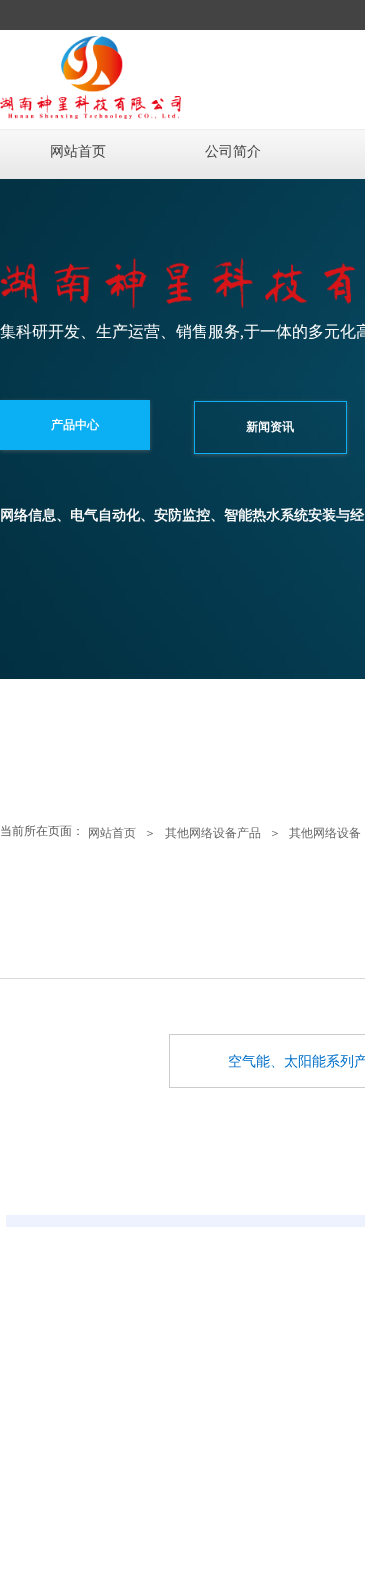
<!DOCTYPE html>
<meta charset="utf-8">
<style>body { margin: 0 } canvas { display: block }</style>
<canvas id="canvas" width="365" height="1587"></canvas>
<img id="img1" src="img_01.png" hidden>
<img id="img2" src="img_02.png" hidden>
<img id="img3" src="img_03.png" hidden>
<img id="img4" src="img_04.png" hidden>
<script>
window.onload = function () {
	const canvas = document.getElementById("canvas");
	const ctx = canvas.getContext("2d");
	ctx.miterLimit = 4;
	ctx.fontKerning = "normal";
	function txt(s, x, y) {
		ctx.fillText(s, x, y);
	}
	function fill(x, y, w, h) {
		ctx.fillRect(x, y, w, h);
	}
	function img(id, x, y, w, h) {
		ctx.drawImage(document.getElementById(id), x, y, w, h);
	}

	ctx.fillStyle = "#FFFFFF";
	fill(0, 0, 365, 1587);
	ctx.fillStyle = "#434343";
	fill(0, 0, 365, 30);
	img("img1", 0, 36, 181, 83);
	img("img2", 0, 129, 365, 50);
	img("img3", 0, 179, 365, 500);
	img("img4", 0, 258, 356, 51);
	ctx.fillStyle = "rgba(108, 108, 108, 0.6)";
	ctx.filter = "blur(2px)";
	ctx.beginPath();
	ctx.rect(0, 401, 150, 50);
	ctx.fill();
	ctx.filter = "none";
	ctx.fillStyle = "#0BB0F4";
	fill(0, 400, 150, 50);
	ctx.save();
	ctx.beginPath();
	ctx.moveTo(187, 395);
	ctx.lineTo(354, 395);
	ctx.lineTo(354, 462);
	ctx.lineTo(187, 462);
	ctx.closePath();
	ctx.moveTo(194, 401);
	ctx.lineTo(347, 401);
	ctx.lineTo(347, 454);
	ctx.lineTo(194, 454);
	ctx.closePath();
	ctx.clip("evenodd");
	ctx.fillStyle = "rgba(108, 108, 108, 0.6)";
	ctx.filter = "blur(2px)";
	ctx.beginPath();
	ctx.rect(194, 402, 153, 53);
	ctx.fill();
	ctx.filter = "none";
	ctx.restore();
	ctx.strokeStyle = "#0BB0F4";
	ctx.strokeRect(194.5, 401.5, 152, 52);
	ctx.fillStyle = "#D9D9D9";
	fill(0, 978, 365, 1);
	ctx.strokeStyle = "#CCCCCC";
	ctx.strokeRect(169.5, 1034.5, 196, 53);
	ctx.fillStyle = "#EEF2FE";
	fill(6, 1215, 359, 12);
	ctx.font = "500 14px WenQuanYi Zen Hei";
	ctx.fillStyle = "#434343";
	txt("网站首页", 50, 156);
	txt("公司简介", 205, 156);
	ctx.font = "500 16px WenQuanYi Zen Hei";
	ctx.fillStyle = "#FFFFFF";
	txt("集科研开发、生产运营、销售服务", 0, 337);
	ctx.font = "16px Liberation Serif";
	txt(",", 240, 337);
	ctx.font = "500 16px WenQuanYi Zen Hei";
	txt("于一体的多元化高", 244, 337);
	ctx.font = "bold 12px WenQuanYi Zen Hei";
	txt("产品中心", 51, 429);
	txt("新闻资讯", 246, 431);
	ctx.font = "bold 14px WenQuanYi Zen Hei";
	txt("网络信息、电气自动化、安防监控、智能热水系统安装与经", 0, 520);
	ctx.font = "500 12px WenQuanYi Zen Hei";
	ctx.fillStyle = "#5A5A5A";
	txt("当前所在页面：", 0, 835);
	ctx.fillStyle = "#666666";
	txt("网站首页", 88, 837);
	txt("＞", 144, 837);
	txt("其他网络设备产品", 165, 837);
	txt("＞", 269, 837);
	txt("其他网络设备", 289, 837);
	ctx.font = "500 14px WenQuanYi Zen Hei";
	ctx.fillStyle = "#0170C9";
	txt("空气能、太阳能系列产", 228, 1066);
};
</script>
